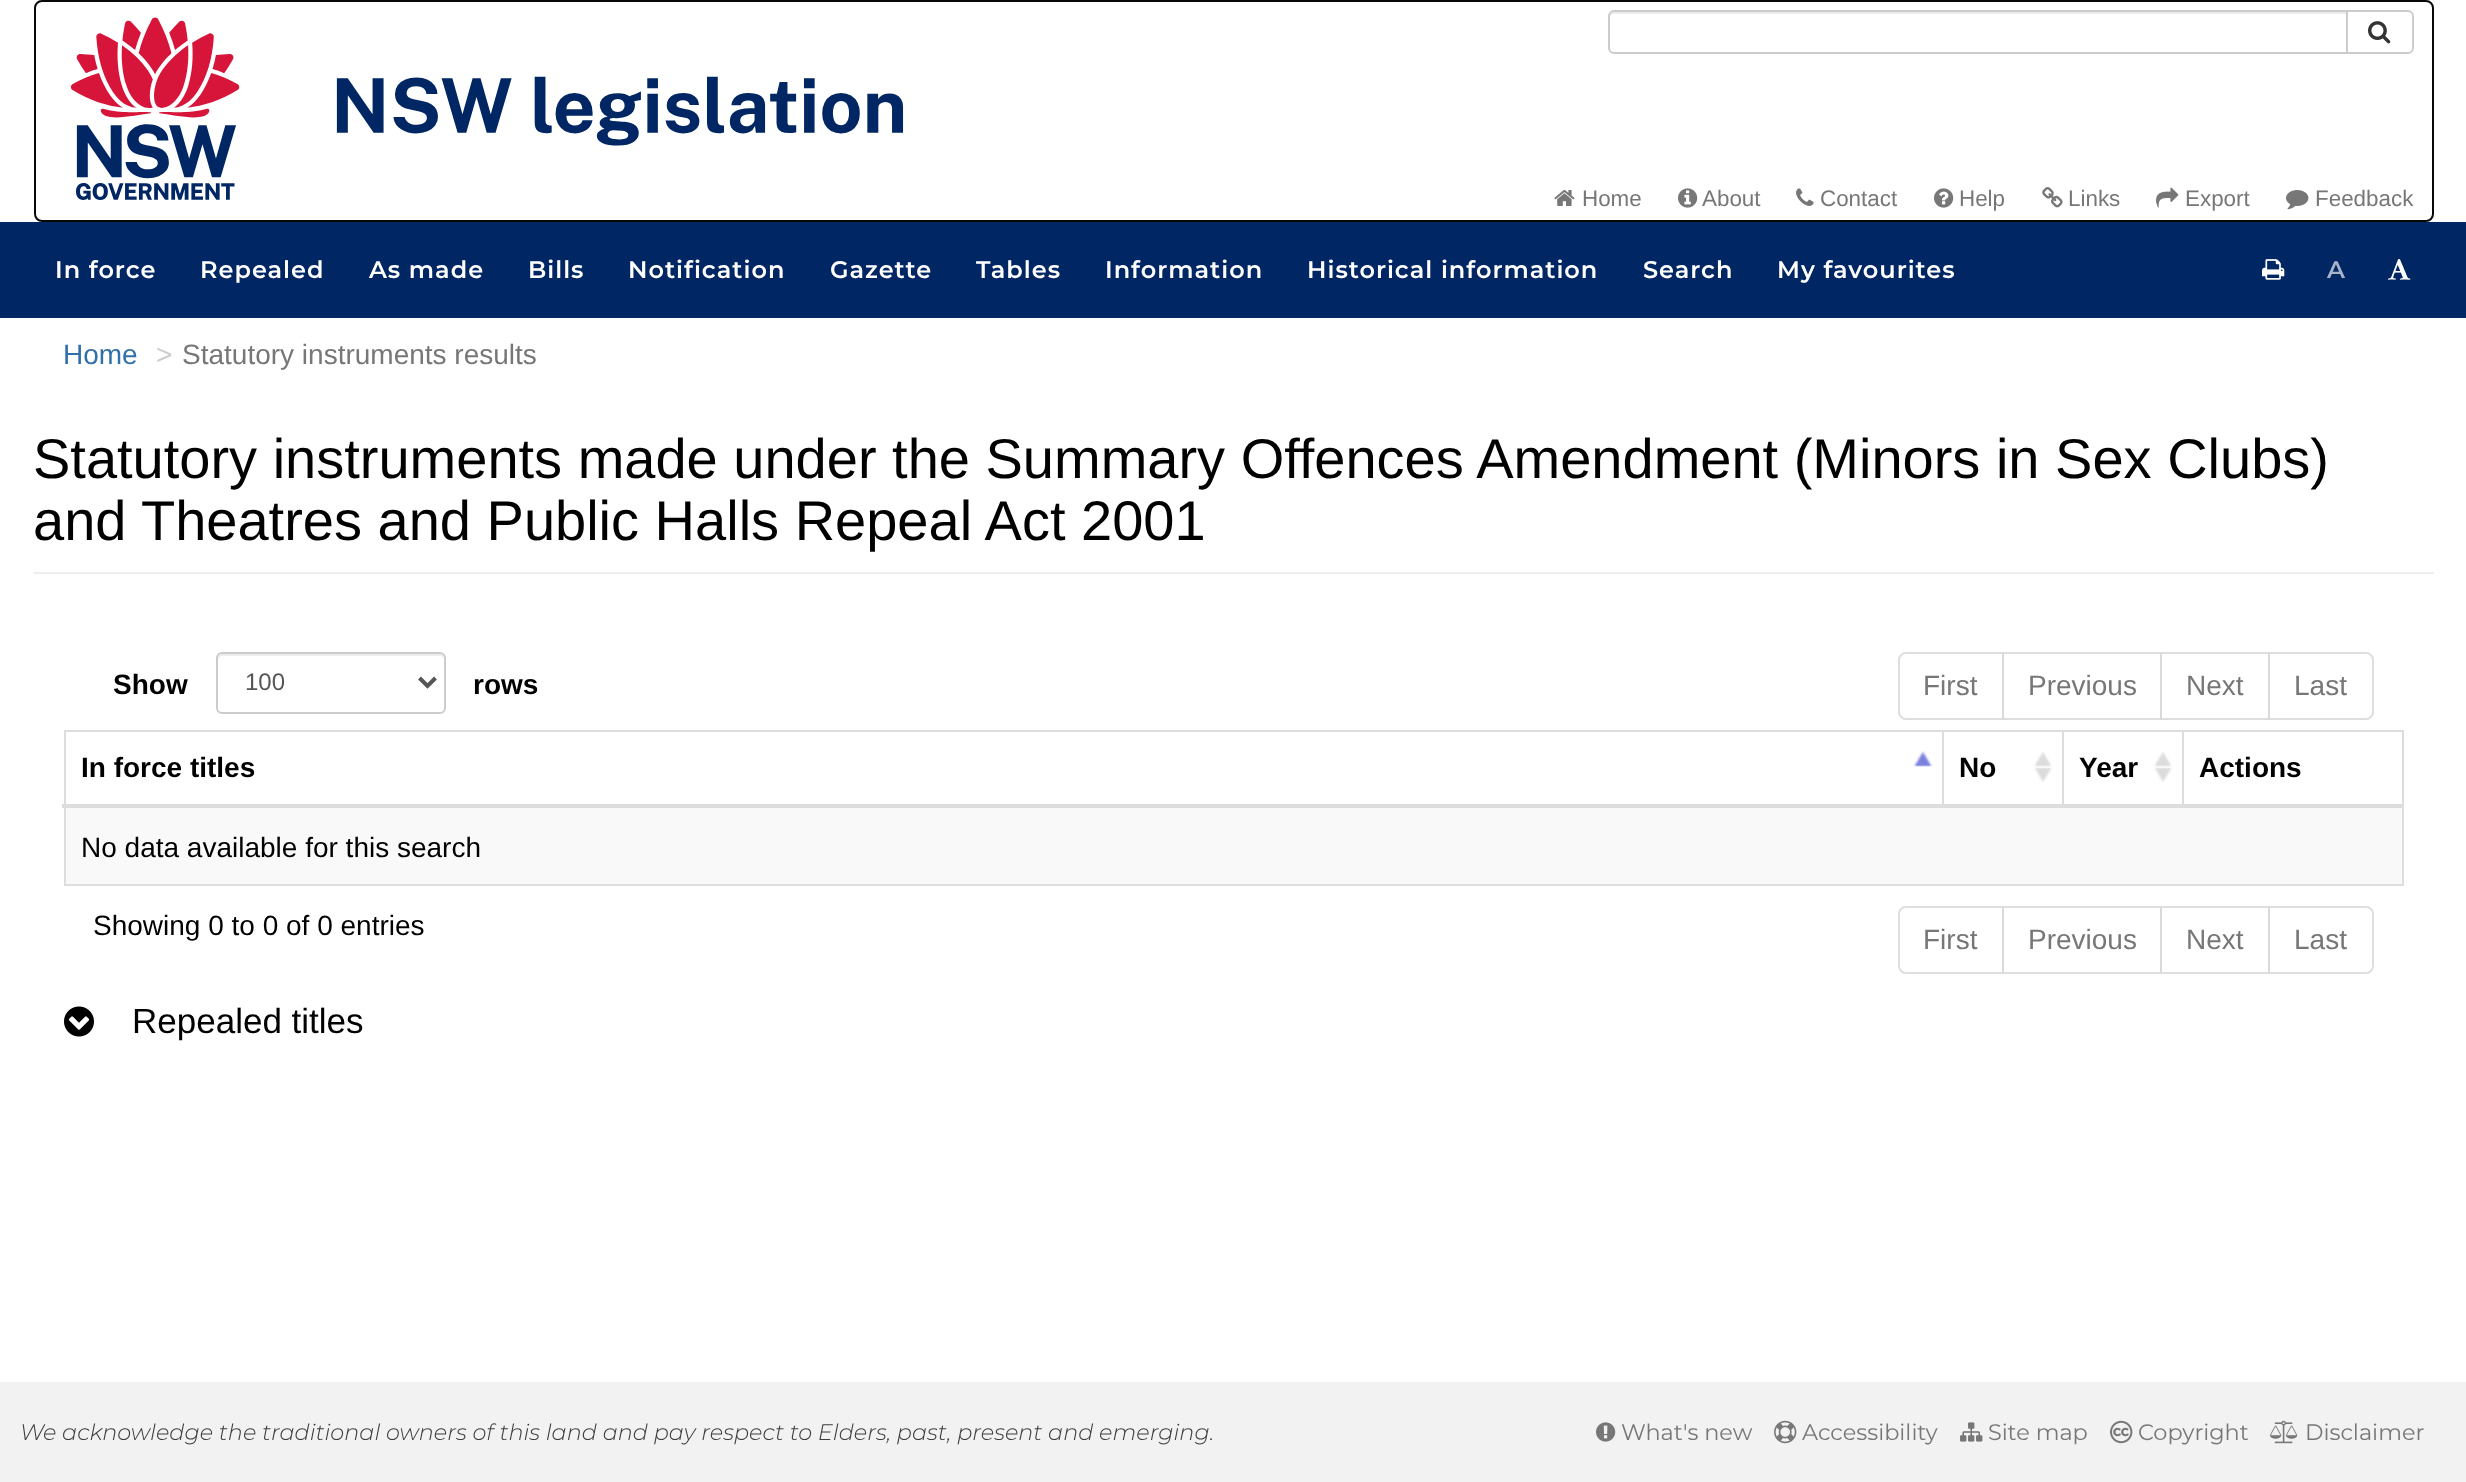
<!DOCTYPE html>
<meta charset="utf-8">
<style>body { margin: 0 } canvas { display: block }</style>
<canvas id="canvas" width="2466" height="1482"></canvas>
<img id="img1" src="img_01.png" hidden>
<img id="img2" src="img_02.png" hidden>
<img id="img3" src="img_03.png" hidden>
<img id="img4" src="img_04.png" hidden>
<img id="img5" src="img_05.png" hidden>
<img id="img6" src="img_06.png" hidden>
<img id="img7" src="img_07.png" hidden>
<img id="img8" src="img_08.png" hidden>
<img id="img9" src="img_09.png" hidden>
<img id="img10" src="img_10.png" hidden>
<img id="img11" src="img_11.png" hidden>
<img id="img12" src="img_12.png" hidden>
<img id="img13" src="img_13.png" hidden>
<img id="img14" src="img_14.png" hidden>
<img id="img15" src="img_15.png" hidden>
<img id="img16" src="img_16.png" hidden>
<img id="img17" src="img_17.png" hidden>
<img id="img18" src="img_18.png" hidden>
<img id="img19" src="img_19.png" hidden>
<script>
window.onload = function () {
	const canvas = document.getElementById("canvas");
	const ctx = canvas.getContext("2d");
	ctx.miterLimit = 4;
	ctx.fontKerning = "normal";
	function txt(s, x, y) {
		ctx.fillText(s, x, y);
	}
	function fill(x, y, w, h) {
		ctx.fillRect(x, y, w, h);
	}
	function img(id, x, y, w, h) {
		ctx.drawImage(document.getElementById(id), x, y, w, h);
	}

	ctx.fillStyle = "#FFFFFF";
	fill(0, 0, 2466, 1482);
	ctx.beginPath();
	ctx.roundRect(35, 1, 2398, 220, 7);
	ctx.strokeStyle = "#080808";
	ctx.lineWidth = 2;
	ctx.stroke();
	img("img1", 70, 17, 834, 183);
	ctx.beginPath();
	ctx.roundRect(2347, 11, 66, 42, [0, 5, 5, 0]);
	ctx.strokeStyle = "#CCCCCC";
	ctx.stroke();
	ctx.beginPath();
	ctx.roundRect(1608, 10, 740, 44, [6, 0, 0, 6]);
	ctx.fill();
	ctx.fillStyle = "#ECECEC";
	ctx.beginPath();
	ctx.moveTo(1614, 14);
	ctx.lineTo(2346, 14);
	ctx.lineTo(2346, 12);
	ctx.lineTo(1614, 12);
	ctx.bezierCurveTo(1610, 12, 1610, 15, 1610, 18);
	ctx.bezierCurveTo(1610, 16, 1612, 14, 1614, 14);
	ctx.closePath();
	ctx.fill();
	ctx.beginPath();
	ctx.roundRect(1609, 11, 738, 42, [5, 0, 0, 5]);
	ctx.stroke();
	img("img2", 2368, 21, 23, 23);
	img("img3", 1554, 190, 21, 16);
	img("img4", 1678, 188, 20, 20);
	img("img5", 1796, 188, 18, 18);
	img("img6", 1934, 188, 20, 20);
	img("img7", 2042, 187, 21, 21);
	img("img8", 2156, 187, 23, 21);
	img("img9", 2286, 190, 23, 20);
	ctx.fillStyle = "#002664";
	fill(0, 222, 2466, 96);
	img("img10", 2262, 259, 23, 21);
	img("img11", 2388, 259, 23, 21);
	ctx.fillStyle = "#EEEEEE";
	fill(34, 572, 2400, 2);
	ctx.fillStyle = "#ECECEC";
	ctx.beginPath();
	ctx.moveTo(222, 656);
	ctx.lineTo(440, 656);
	ctx.bezierCurveTo(442, 656, 444, 658, 444, 660);
	ctx.bezierCurveTo(444, 657, 444, 655, 441, 654);
	ctx.lineTo(222, 654);
	ctx.bezierCurveTo(218, 654, 218, 657, 218, 660);
	ctx.bezierCurveTo(218, 658, 220, 656, 222, 656);
	ctx.closePath();
	ctx.fill();
	ctx.beginPath();
	ctx.roundRect(217, 653, 228, 60, 5);
	ctx.stroke();
	ctx.beginPath();
	ctx.moveTo(419.5, 678);
	ctx.lineTo(427.5, 686);
	ctx.lineTo(435.5, 678);
	ctx.strokeStyle = "#555555";
	ctx.lineWidth = 4;
	ctx.stroke();
	ctx.beginPath();
	ctx.roundRect(1899, 653, 104, 66, [7, 0, 0, 7]);
	ctx.strokeStyle = "#DEDEDE";
	ctx.lineWidth = 2;
	ctx.stroke();
	ctx.fillStyle = "rgba(255, 255, 255, 0.65)";
	fill(2002, 652, 2, 68);
	ctx.strokeStyle = "rgba(204, 204, 204, 0.65)";
	ctx.strokeRect(2003, 653, 158, 66);
	fill(2160, 652, 2, 68);
	ctx.strokeRect(2161, 653, 108, 66);
	ctx.beginPath();
	ctx.roundRect(2268, 652, 106, 68, [0, 8, 8, 0]);
	ctx.fill();
	ctx.beginPath();
	ctx.roundRect(2269, 653, 104, 66, [0, 7, 7, 0]);
	ctx.stroke();
	ctx.fillStyle = "#DDDDDD";
	fill(64, 730, 2340, 2);
	fill(2402, 730, 2, 156);
	fill(64, 884, 2340, 2);
	fill(64, 730, 2, 156);
	img("img12", 1913, 751, 20, 16);
	img("img13", 2034, 751, 18, 32);
	fill(1942, 730, 2, 76);
	img("img13", 2154, 751, 18, 32);
	fill(2062, 730, 2, 76);
	fill(2182, 730, 2, 76);
	fill(62, 804, 2342, 4);
	ctx.fillStyle = "#F9F9F9";
	fill(66, 808, 2336, 76);
	ctx.beginPath();
	ctx.roundRect(1899, 907, 104, 66, [7, 0, 0, 7]);
	ctx.strokeStyle = "#DEDEDE";
	ctx.stroke();
	ctx.fillStyle = "rgba(255, 255, 255, 0.65)";
	fill(2002, 906, 2, 68);
	ctx.strokeStyle = "rgba(204, 204, 204, 0.65)";
	ctx.strokeRect(2003, 907, 158, 66);
	fill(2160, 906, 2, 68);
	ctx.strokeRect(2161, 907, 108, 66);
	ctx.beginPath();
	ctx.roundRect(2268, 906, 106, 68, [0, 8, 8, 0]);
	ctx.fill();
	ctx.beginPath();
	ctx.roundRect(2269, 907, 104, 66, [0, 7, 7, 0]);
	ctx.stroke();
	img("img14", 64, 1006, 30, 31);
	ctx.fillStyle = "#F2F2F2";
	fill(0, 1382, 2466, 100);
	img("img15", 1596, 1422, 20, 20);
	img("img16", 1774, 1420, 23, 24);
	img("img17", 1960, 1422, 23, 20);
	img("img18", 2110, 1420, 23, 24);
	img("img19", 2270, 1420, 28, 24);
	ctx.font = "22.4px Liberation Sans";
	ctx.fillStyle = "#777777";
	txt("Home", 1582, 206);
	txt("About", 1702, 206);
	txt("Contact", 1820, 206);
	txt("Help", 1959, 206);
	txt("Links", 2068, 206);
	txt("Export", 2185, 206);
	txt("Feedback", 2315, 206);
	ctx.letterSpacing = "1px";
	ctx.font = "600 24px Montserrat";
	ctx.fillStyle = "#FFFFFF";
	txt("In force", 55, 278);
	txt("Repealed", 200, 278);
	txt("As made", 369, 278);
	txt("Bills", 528, 278);
	txt("Notification", 628, 278);
	txt("Gazette", 830, 278);
	txt("Tables", 976, 278);
	txt("Information", 1105, 278);
	txt("Historical information", 1307, 278);
	txt("Search", 1643, 278);
	txt("My favourites", 1777, 278);
	ctx.fillStyle = "#A6B3C9";
	txt("A", 2327, 278);
	ctx.letterSpacing = "0px";
	ctx.font = "28px Liberation Sans";
	ctx.fillStyle = "#3170AB";
	txt("Home", 63, 364);
	ctx.fillStyle = "#CCCCCC";
	txt(">", 156, 364);
	ctx.fillStyle = "#777777";
	txt("Statutory instruments results", 182, 364);
	ctx.font = "56px Liberation Sans";
	ctx.fillStyle = "#000000";
	txt("Statutory instruments made under the Summary Offences Amendment (Minors in Sex Clubs)", 33, 478);
	txt("and Theatres and Public Halls Repeal Act 2001", 33, 540);
	ctx.font = "bold 28px Liberation Sans";
	txt("Show", 113, 694);
	ctx.font = "24px Liberation Sans";
	ctx.fillStyle = "#555555";
	txt("100", 245, 690);
	ctx.font = "bold 28px Liberation Sans";
	ctx.fillStyle = "#000000";
	txt("rows", 473, 694);
	ctx.font = "28px Liberation Sans";
	ctx.fillStyle = "#777777";
	txt("First", 1923, 695);
	txt("Previous", 2028, 695);
	txt("Next", 2186, 695);
	txt("Last", 2294, 695);
	ctx.font = "bold 28px Liberation Sans";
	ctx.fillStyle = "#000000";
	txt("In force titles", 81, 777);
	txt("No", 1959, 777);
	txt("Year", 2079, 777);
	txt("Actions", 2199, 777);
	ctx.font = "28px Liberation Sans";
	txt("No data available for this search", 81, 857);
	txt("Showing 0 to 0 of 0 entries", 93, 935);
	ctx.fillStyle = "#777777";
	txt("First", 1923, 949);
	txt("Previous", 2028, 949);
	txt("Next", 2186, 949);
	txt("Last", 2294, 949);
	ctx.font = "35px Liberation Sans";
	ctx.fillStyle = "#000000";
	txt("Repealed titles", 132, 1033);
	ctx.font = "italic 300 22.4px Montserrat";
	ctx.fillStyle = "#3D3D3D";
	txt("We acknowledge the traditional owners of this land and pay respect to Elders, past, present and emerging.", 20, 1440);
	ctx.font = "22.4px Montserrat";
	ctx.fillStyle = "#777777";
	txt("What's new", 1621, 1440);
	txt("Accessibility", 1802, 1440);
	txt("Site map", 1988, 1440);
	txt("Copyright", 2138, 1440);
	txt("Disclaimer", 2305, 1440);
};
</script>
